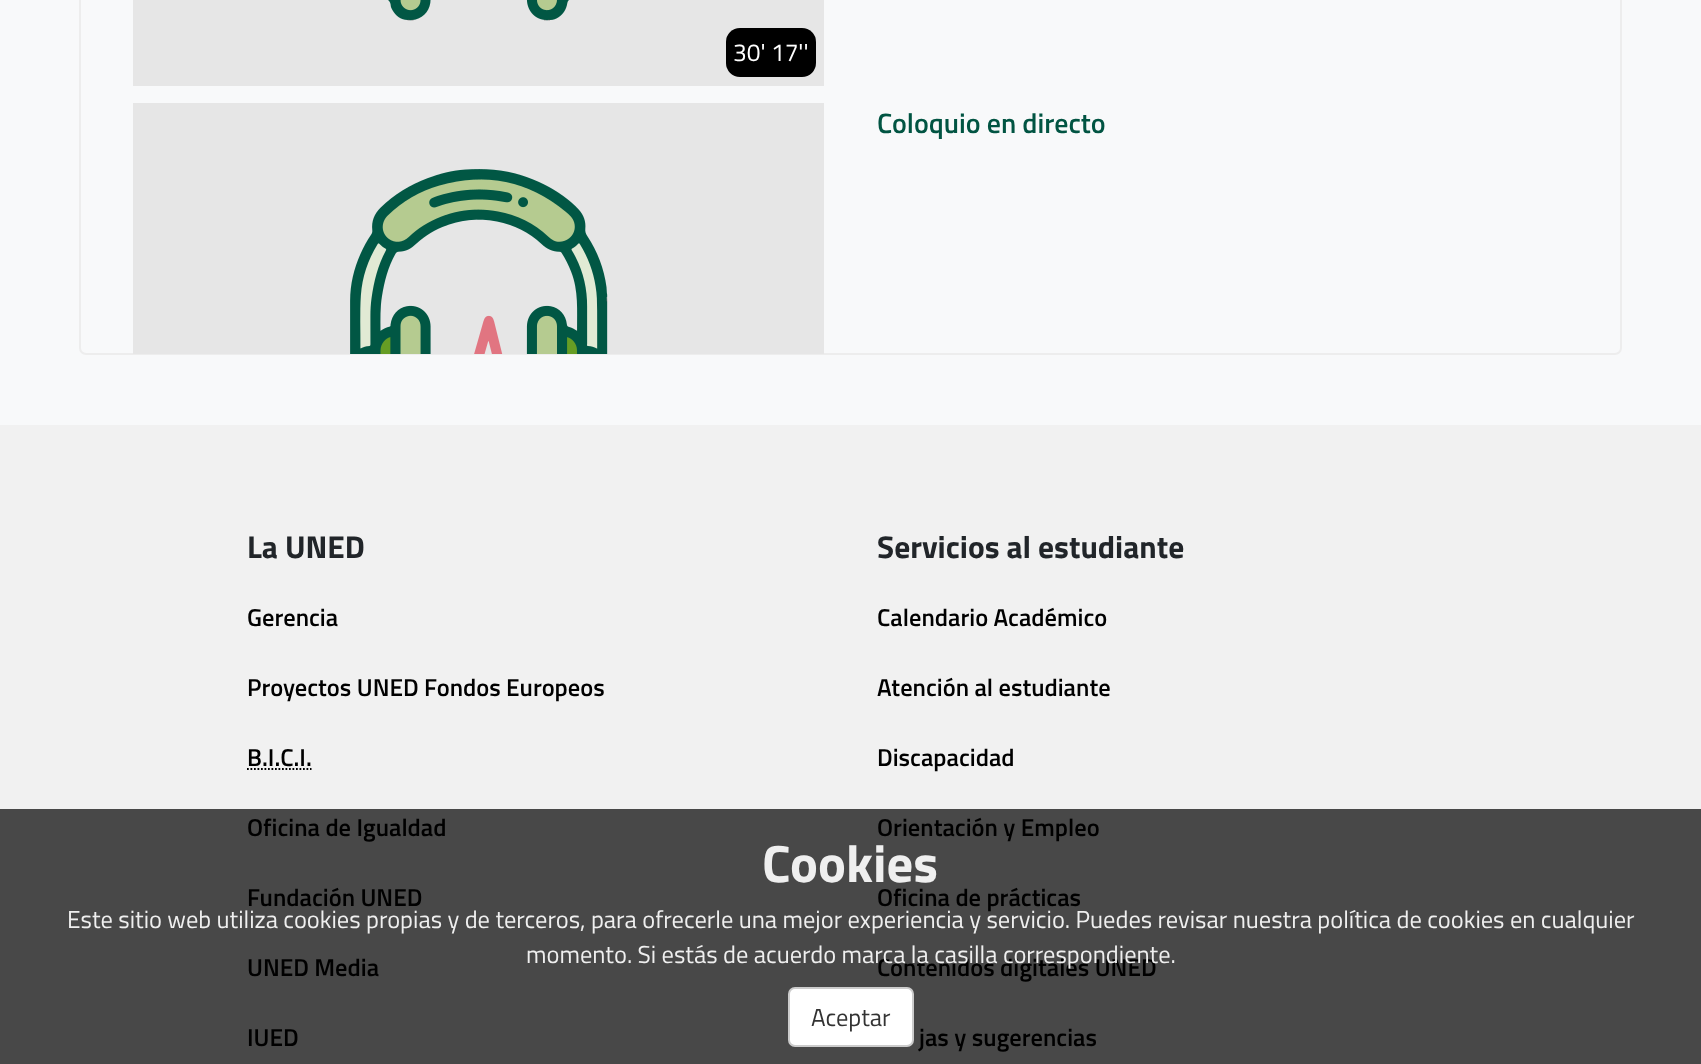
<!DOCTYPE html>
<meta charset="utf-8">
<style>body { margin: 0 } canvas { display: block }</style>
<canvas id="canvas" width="1701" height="1064"></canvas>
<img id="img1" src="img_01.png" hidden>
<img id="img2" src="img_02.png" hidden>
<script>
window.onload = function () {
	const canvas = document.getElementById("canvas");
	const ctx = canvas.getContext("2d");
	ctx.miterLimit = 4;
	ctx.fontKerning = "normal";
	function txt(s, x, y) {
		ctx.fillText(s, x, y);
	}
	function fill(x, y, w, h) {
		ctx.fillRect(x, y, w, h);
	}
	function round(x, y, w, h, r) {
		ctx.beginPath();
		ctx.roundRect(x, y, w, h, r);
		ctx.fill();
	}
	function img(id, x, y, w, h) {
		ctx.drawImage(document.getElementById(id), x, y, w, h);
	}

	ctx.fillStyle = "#F8F9FA";
	fill(0, 0, 1701, 1064);
	ctx.beginPath();
	ctx.roundRect(80, -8, 1541, 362, 6);
	ctx.strokeStyle = "#EDEDED";
	ctx.lineWidth = 2;
	ctx.stroke();
	img("img1", 133, 0, 691, 86);
	ctx.fillStyle = "#000000";
	round(726, 28, 90, 49, 14);
	img("img2", 133, 103, 691, 251);
	ctx.fillStyle = "#F1F1F1";
	fill(0, 425, 1701, 384);
	ctx.fillStyle = "#484848";
	fill(0, 809, 1701, 255);
	ctx.beginPath();
	ctx.moveTo(247, 769);
	ctx.lineTo(311.5, 769);
	ctx.strokeStyle = "#000000";
	ctx.lineWidth = 1.8;
	ctx.setLineDash([1.75, 1.75]);
	ctx.stroke();
	ctx.fillStyle = "#FFFFFF";
	ctx.beginPath();
	ctx.roundRect(789, 988, 124, 58, 6);
	ctx.fill();
	ctx.strokeStyle = "#CCCCCC";
	ctx.lineWidth = 2;
	ctx.setLineDash([]);
	ctx.stroke();
	ctx.font = "24.5px Titillium Web";
	txt("30' 17''", 733, 61);
	ctx.font = "600 28px Titillium Web";
	ctx.fillStyle = "#015442";
	txt("Coloquio en directo", 877, 133);
	ctx.font = "bold 31.5px Titillium Web";
	ctx.fillStyle = "#212529";
	txt("La UNED", 247, 558);
	ctx.font = "600 24.5px Titillium Web";
	ctx.fillStyle = "#000000";
	txt("Gerencia", 247, 626);
	txt("Proyectos UNED Fondos Europeos", 247, 696);
	txt("B.I.C.I.", 247, 766);
	txt("Oficina de Igualdad", 247, 836);
	txt("Fundación UNED", 247, 906);
	txt("UNED Media", 247, 976);
	txt("IUED", 247, 1046);
	ctx.font = "bold 31.5px Titillium Web";
	ctx.fillStyle = "#212529";
	txt("Servicios al estudiante", 877, 558);
	ctx.font = "600 24.5px Titillium Web";
	ctx.fillStyle = "#000000";
	txt("Calendario Académico", 877, 626);
	txt("Atención al estudiante", 877, 696);
	txt("Discapacidad", 877, 766);
	txt("Orientación y Empleo", 877, 836);
	txt("Oficina de prácticas", 877, 906);
	txt("Contenidos digitales UNED", 877, 976);
	txt("jas y sugerencias", 919, 1046);
	ctx.font = "bold 52.5px Titillium Web";
	ctx.fillStyle = "#EFEFEF";
	txt("Cookies", 762, 882);
	ctx.font = "24.5px Titillium Web";
	txt("Este sitio web utiliza cookies propias y de terceros, para ofrecerle una mejor experiencia y servicio. Puedes revisar nuestra política de cookies en cualquier", 67, 928);
	txt("momento. Si estás de acuerdo marca la casilla correspondiente.", 526, 963);
	ctx.fillStyle = "#333333";
	txt("Aceptar", 811, 1026);
};
</script>
